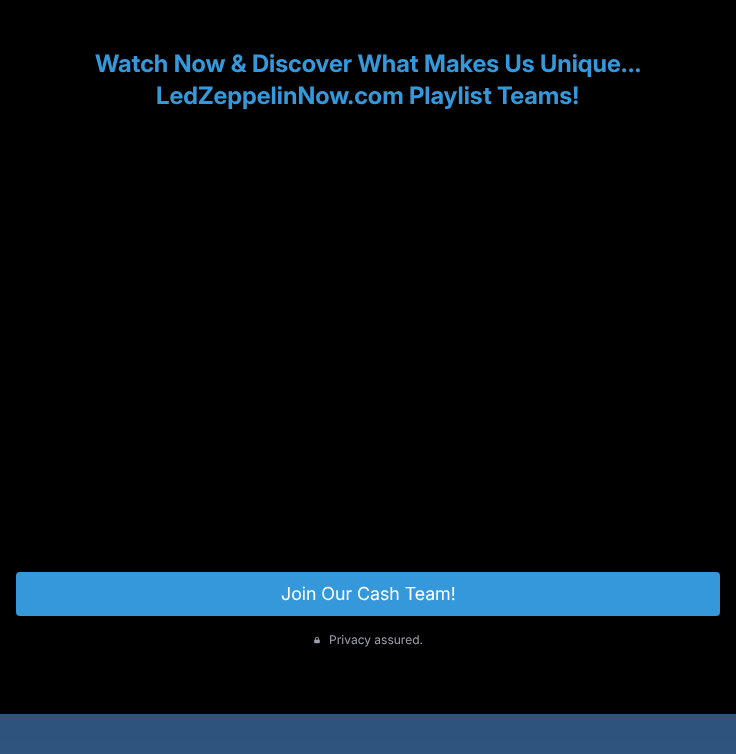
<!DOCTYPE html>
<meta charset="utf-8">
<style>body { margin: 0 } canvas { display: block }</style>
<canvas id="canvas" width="736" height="754"></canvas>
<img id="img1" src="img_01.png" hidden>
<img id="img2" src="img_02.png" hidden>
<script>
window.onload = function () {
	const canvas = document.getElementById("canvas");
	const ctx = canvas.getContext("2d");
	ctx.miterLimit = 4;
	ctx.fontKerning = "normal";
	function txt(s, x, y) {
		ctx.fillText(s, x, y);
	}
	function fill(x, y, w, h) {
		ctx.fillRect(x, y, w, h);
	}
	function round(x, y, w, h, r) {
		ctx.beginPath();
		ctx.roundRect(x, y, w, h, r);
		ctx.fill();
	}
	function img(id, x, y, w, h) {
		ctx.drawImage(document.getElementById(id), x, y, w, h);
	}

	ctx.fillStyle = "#FFFFFF";
	fill(0, 0, 736, 754);
	img("img1", 0, 714, 736, 40);
	ctx.fillStyle = "#000000";
	fill(0, 0, 736, 714);
	ctx.fillStyle = "#3498DB";
	round(16, 572, 704, 44, 4);
	img("img2", 314, 636, 6, 8);
	ctx.font = "bold 24px Inter";
	txt("Watch Now & Discover What Makes Us Unique...", 95, 72);
	txt("LedZeppelinNow.com Playlist Teams!", 156, 104);
	ctx.font = "18px Inter";
	ctx.fillStyle = "#FFFFFF";
	txt("Join Our Cash Team!", 281, 600);
	ctx.font = "12px 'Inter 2'";
	ctx.fillStyle = "#9CA3AF";
	txt("Privacy assured.", 329, 644);
};
</script>
